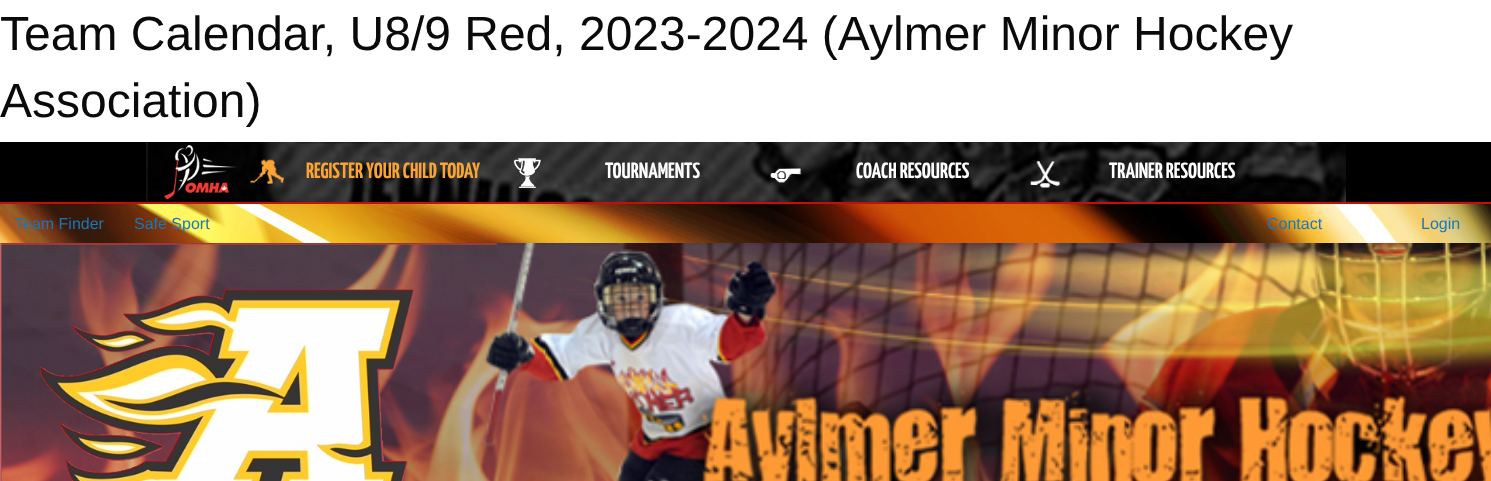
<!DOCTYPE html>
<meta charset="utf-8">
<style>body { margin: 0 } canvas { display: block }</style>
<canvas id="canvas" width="1491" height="481"></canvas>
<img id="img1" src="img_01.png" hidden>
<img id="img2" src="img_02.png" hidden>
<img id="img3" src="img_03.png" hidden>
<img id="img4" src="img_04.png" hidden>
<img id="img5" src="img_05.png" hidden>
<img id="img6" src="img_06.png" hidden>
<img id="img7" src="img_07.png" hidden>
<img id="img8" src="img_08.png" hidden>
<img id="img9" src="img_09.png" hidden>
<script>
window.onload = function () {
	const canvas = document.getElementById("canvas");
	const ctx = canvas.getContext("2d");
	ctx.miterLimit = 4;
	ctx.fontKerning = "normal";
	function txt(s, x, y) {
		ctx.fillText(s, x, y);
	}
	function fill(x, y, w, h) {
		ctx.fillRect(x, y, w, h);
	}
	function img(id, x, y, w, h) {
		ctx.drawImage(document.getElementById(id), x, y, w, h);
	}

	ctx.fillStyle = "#FFFFFF";
	fill(0, 0, 1491, 481);
	ctx.fillStyle = "#000000";
	fill(0, 142, 1491, 60);
	ctx.fillStyle = "#C60C0C";
	fill(0, 202, 1491, 2);
	img("img1", 146, 142, 1200, 60);
	img("img2", 163, 145, 74, 55);
	img("img3", 250, 159, 34, 25);
	img("img4", 513, 158, 28, 31);
	img("img5", 770, 168, 32, 15);
	img("img6", 1030, 161, 30, 27);
	img("img7", 0, 204, 1491, 39);
	img("img8", 1, 243, 1490, 238);
	img("img9", 0, 243, 497, 238);
	ctx.font = "48px Liberation Sans";
	ctx.fillStyle = "#0A0A0A";
	txt("Team Calendar, U8/9 Red, 2023-2024 (Aylmer Minor Hockey", 0, 50);
	txt("Association)", 0, 117);
	ctx.font = "200 22px Yanone Kaffeesatz";
	ctx.fillStyle = "#F9A435";
	txt("REGISTER YOUR CHILD TODAY", 306, 178);
	ctx.fillStyle = "#FFFFFF";
	txt("TOURNAMENTS", 605, 178);
	txt("COACH RESOURCES", 856, 178);
	txt("TRAINER RESOURCES", 1109, 178);
	ctx.font = "16px Liberation Sans";
	ctx.fillStyle = "#1779BA";
	txt("Team Finder", 15, 229);
	txt("Safe Sport", 134, 229);
	txt("Contact", 1267, 229);
	txt("Login", 1421, 229);
};
</script>
